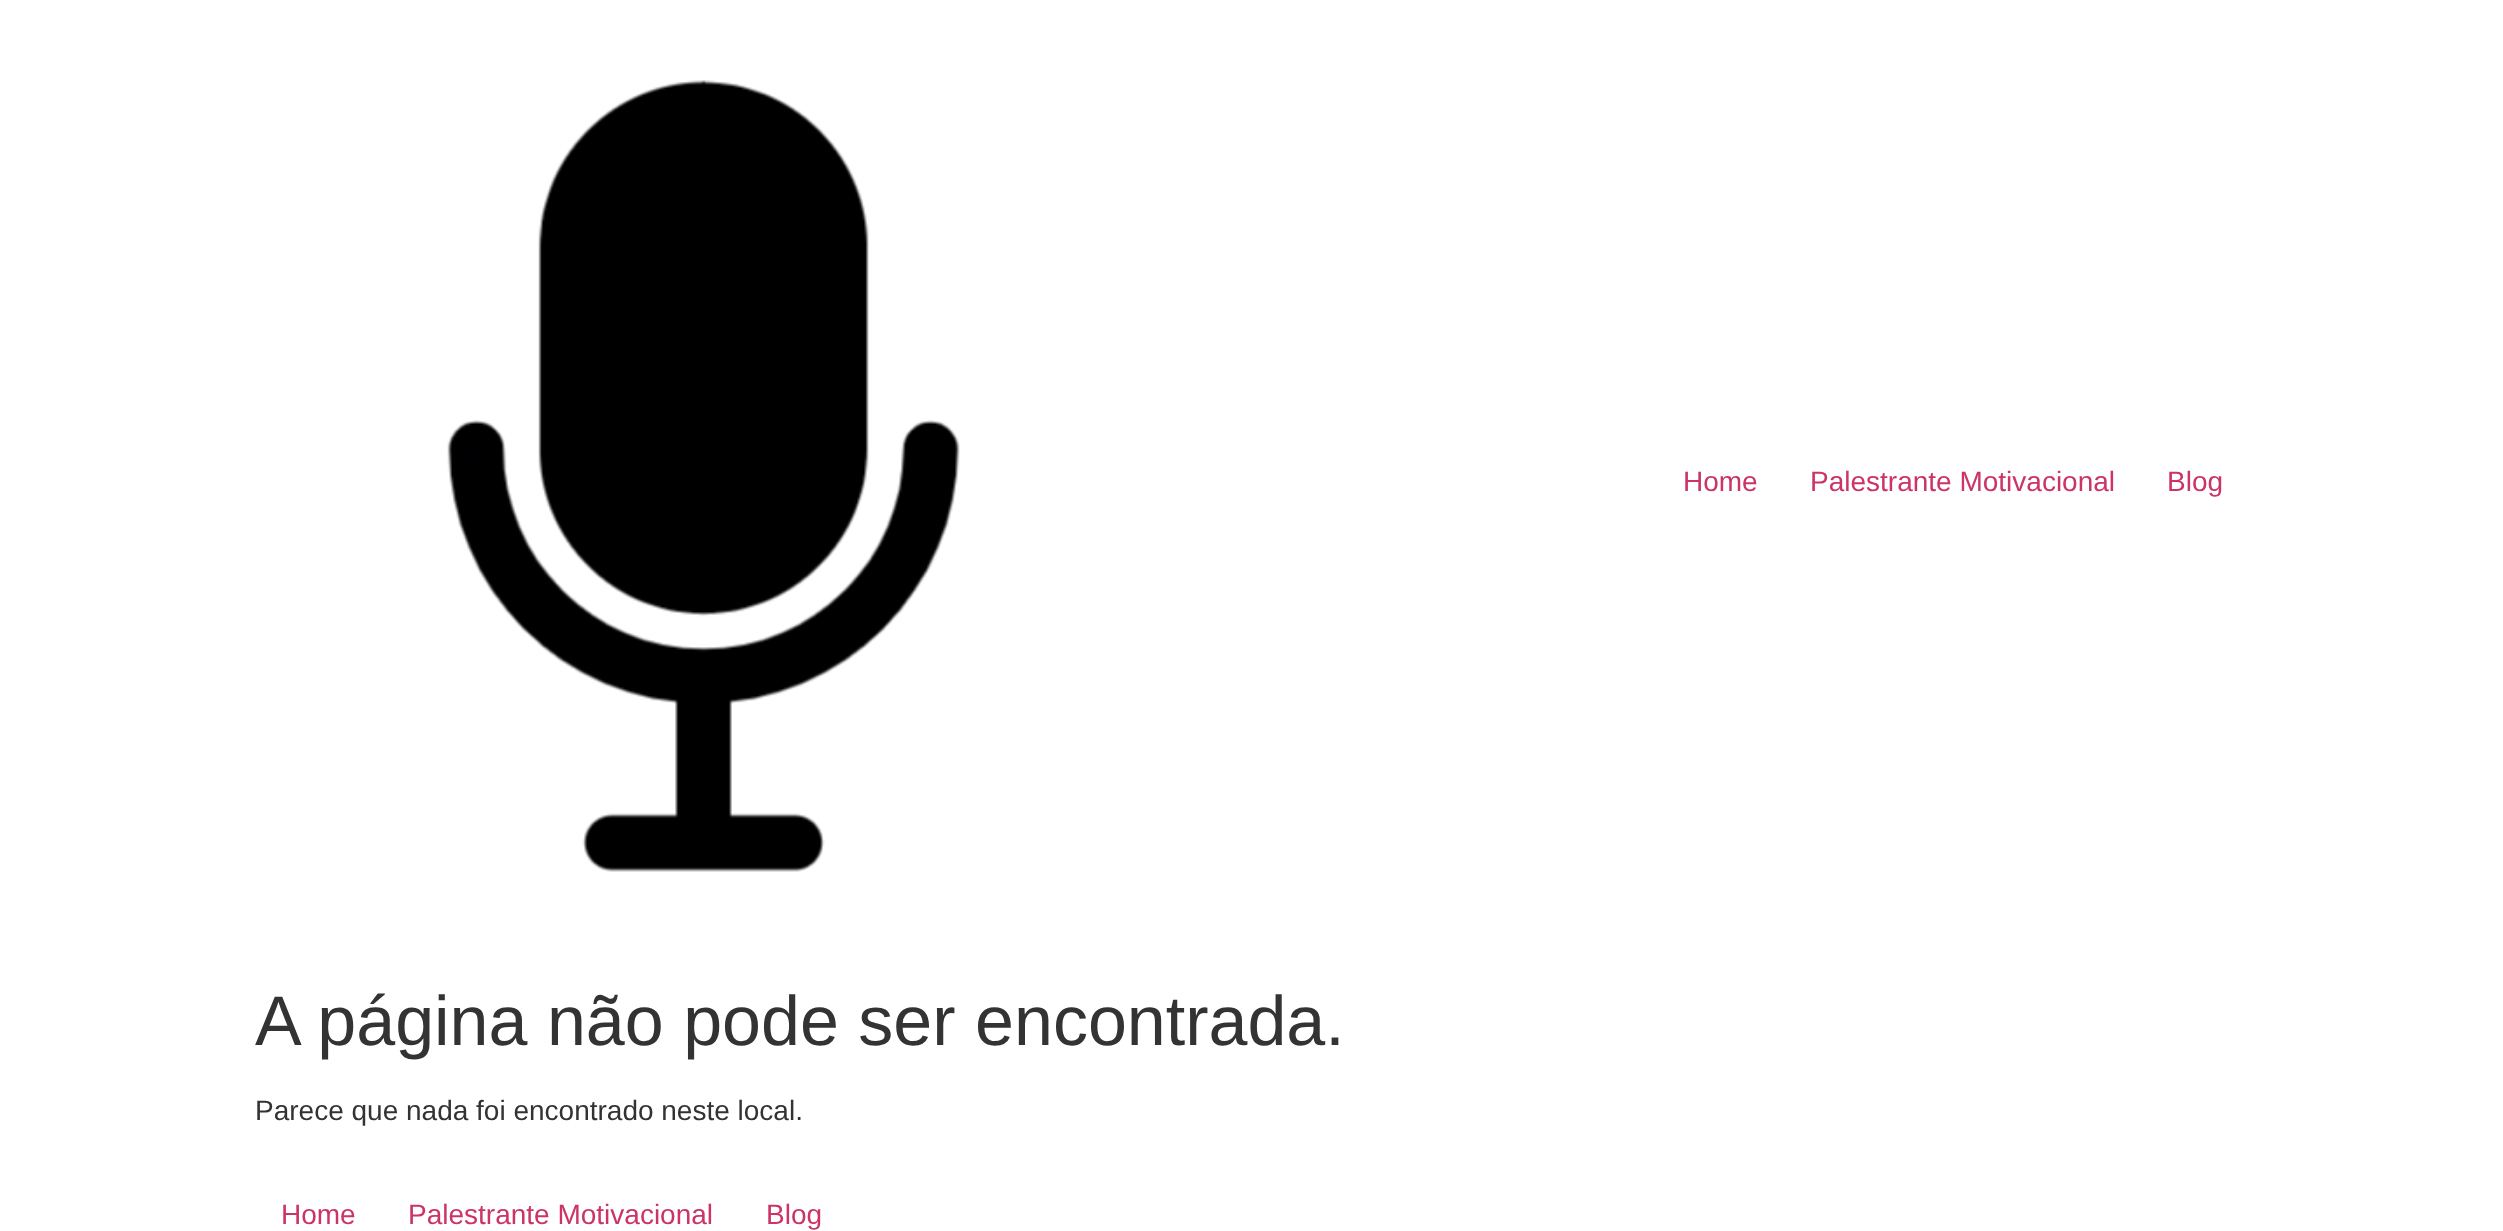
<!DOCTYPE html>
<meta charset="utf-8">
<style>body { margin: 0 } canvas { display: block }</style>
<canvas id="canvas" width="2503" height="1231"></canvas>
<img id="img1" src="img_01.png" hidden>
<script>
window.onload = function () {
	const canvas = document.getElementById("canvas");
	const ctx = canvas.getContext("2d");
	ctx.miterLimit = 4;
	ctx.fontKerning = "normal";
	function txt(s, x, y) {
		ctx.fillText(s, x, y);
	}
	function fill(x, y, w, h) {
		ctx.fillRect(x, y, w, h);
	}
	function img(id, x, y, w, h) {
		ctx.drawImage(document.getElementById(id), x, y, w, h);
	}

	ctx.fillStyle = "#FFFFFF";
	fill(0, 0, 2503, 1231);
	img("img1", 447, 80, 513, 792);
	ctx.font = "28px Liberation Sans";
	ctx.fillStyle = "#CC3366";
	txt("Home", 1683, 491);
	txt("Palestrante Motivacional", 1810, 491);
	txt("Blog", 2167, 491);
	ctx.font = "70px Liberation Sans";
	ctx.fillStyle = "#333333";
	txt("A página não pode ser encontrada.", 255, 1045);
	ctx.font = "28px Liberation Sans";
	txt("Parece que nada foi encontrado neste local.", 255, 1120);
	ctx.fillStyle = "#CC3366";
	txt("Home", 281, 1224);
	txt("Palestrante Motivacional", 408, 1224);
	txt("Blog", 766, 1224);
};
</script>
